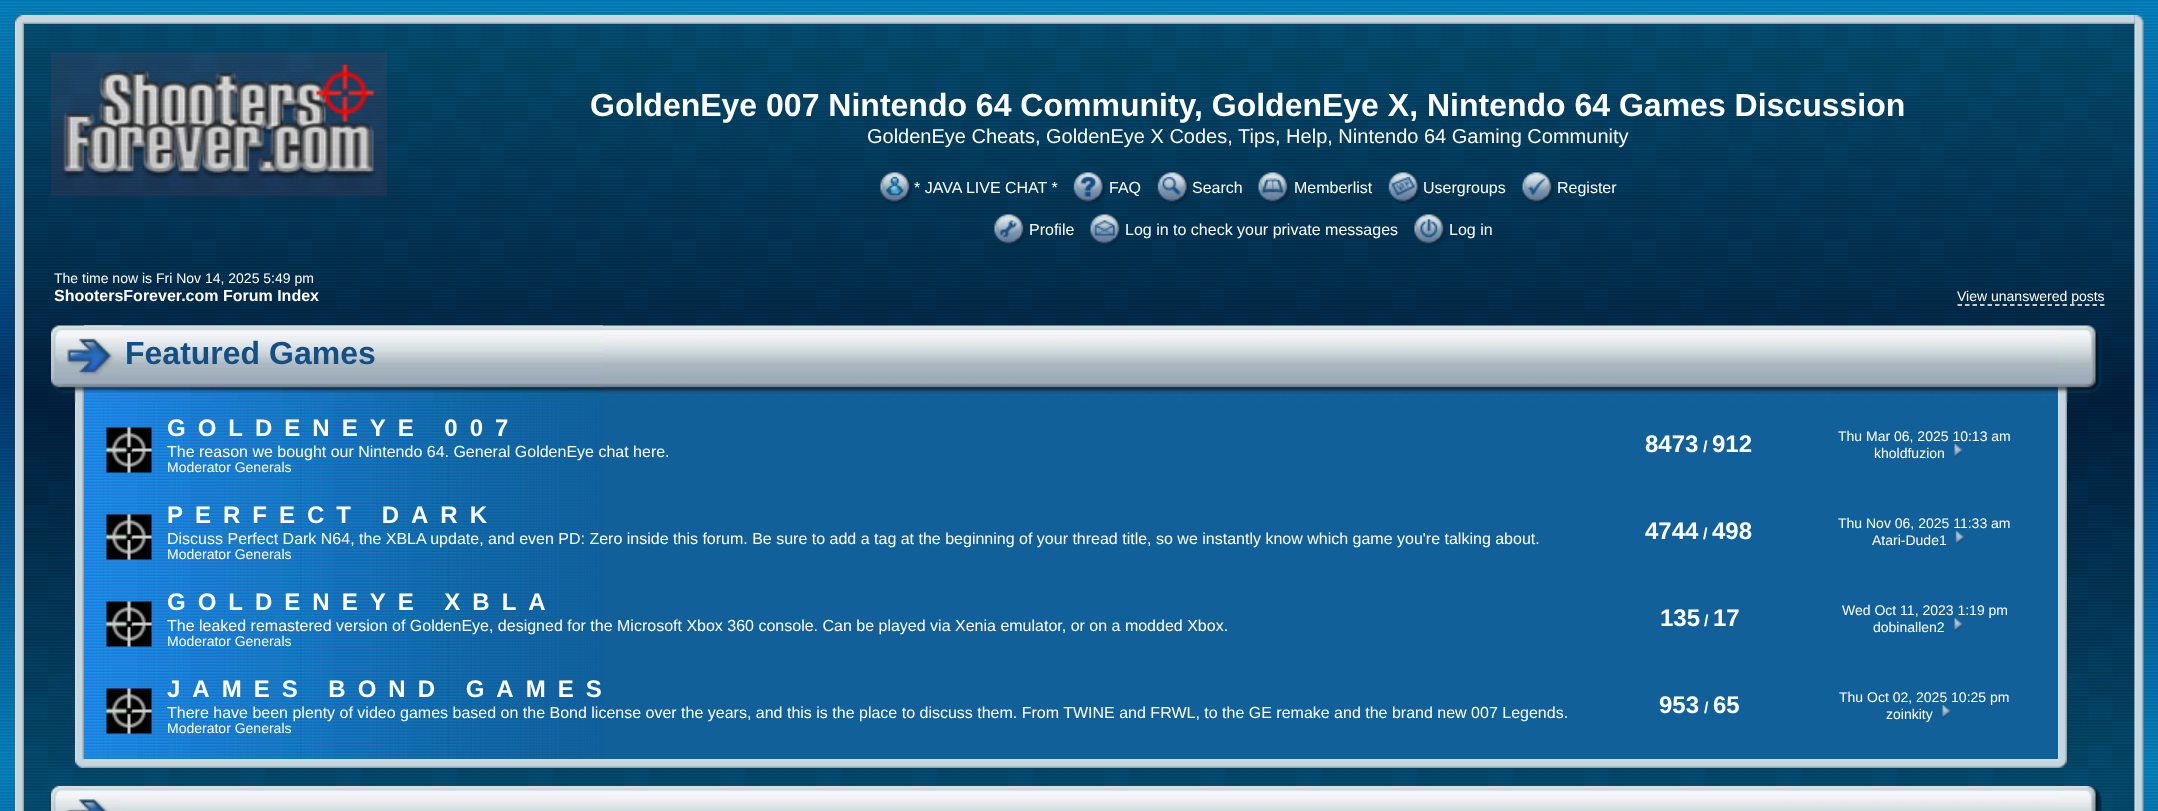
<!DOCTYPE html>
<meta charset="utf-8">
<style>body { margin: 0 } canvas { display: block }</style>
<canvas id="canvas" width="2158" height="811"></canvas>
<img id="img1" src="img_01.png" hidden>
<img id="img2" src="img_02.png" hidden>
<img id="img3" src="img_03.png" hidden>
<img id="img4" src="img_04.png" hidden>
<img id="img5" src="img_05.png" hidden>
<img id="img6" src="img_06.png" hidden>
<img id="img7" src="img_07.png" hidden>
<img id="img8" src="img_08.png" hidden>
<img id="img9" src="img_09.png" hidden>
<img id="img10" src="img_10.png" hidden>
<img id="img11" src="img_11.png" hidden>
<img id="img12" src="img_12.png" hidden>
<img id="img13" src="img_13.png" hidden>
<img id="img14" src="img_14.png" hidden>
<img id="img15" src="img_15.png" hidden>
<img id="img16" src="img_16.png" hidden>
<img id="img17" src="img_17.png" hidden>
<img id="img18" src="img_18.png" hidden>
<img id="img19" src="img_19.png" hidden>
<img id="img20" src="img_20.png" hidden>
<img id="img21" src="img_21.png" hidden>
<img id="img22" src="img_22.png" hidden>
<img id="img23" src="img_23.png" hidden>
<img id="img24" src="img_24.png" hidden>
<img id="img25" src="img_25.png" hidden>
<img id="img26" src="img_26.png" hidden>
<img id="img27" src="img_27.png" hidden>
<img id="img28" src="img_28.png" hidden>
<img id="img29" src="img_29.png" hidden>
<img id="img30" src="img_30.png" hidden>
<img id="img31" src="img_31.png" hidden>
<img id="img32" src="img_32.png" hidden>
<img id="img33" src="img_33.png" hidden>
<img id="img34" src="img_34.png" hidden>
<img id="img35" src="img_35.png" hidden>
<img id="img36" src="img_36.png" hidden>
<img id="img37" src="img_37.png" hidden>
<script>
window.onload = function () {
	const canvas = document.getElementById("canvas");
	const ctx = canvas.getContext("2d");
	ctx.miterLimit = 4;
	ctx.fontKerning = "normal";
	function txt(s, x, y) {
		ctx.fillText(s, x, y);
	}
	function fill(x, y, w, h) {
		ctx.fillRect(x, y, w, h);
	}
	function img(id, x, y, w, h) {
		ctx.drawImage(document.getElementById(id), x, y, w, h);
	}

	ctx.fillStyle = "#FFFFFF";
	fill(0, 0, 2158, 811);
	img("img1", 0, 0, 2158, 811);
	img("img2", 15, 15, 9, 9);
	img("img3", 24, 15, 2111, 9);
	img("img4", 2134, 15, 10, 9);
	img("img5", 15, 24, 9, 787);
	img("img6", 24, 24, 2111, 787);
	img("img7", 51, 52, 336, 145);
	img("img8", 880, 172, 32, 32);
	img("img9", 1073, 172, 33, 32);
	img("img10", 1157, 172, 33, 32);
	img("img11", 1258, 172, 32, 32);
	img("img12", 1388, 172, 33, 32);
	img("img13", 1522, 172, 32, 32);
	img("img14", 994, 214, 32, 32);
	img("img15", 1090, 214, 32, 32);
	img("img16", 1414, 214, 32, 32);
	ctx.beginPath();
	ctx.moveTo(1957.5, 305);
	ctx.lineTo(2104.5, 305);
	ctx.strokeStyle = "#FFFFFF";
	ctx.lineWidth = 1.5;
	ctx.setLineDash([4.5, 3]);
	ctx.stroke();
	img("img17", 51, 325, 33, 77);
	img("img18", 84, 325, 1974, 77);
	img("img19", 84, 325, 519, 77);
	img("img20", 84, 325, 38, 51);
	img("img21", 2058, 325, 44, 77);
	img("img22", 75, 402, 9, 357);
	ctx.fillStyle = "#11609A";
	fill(603, 402, 1455, 357);
	img("img23", 84, 402, 519, 357);
	img("img24", 106, 427, 46, 46);
	img("img25", 1954, 444, 9, 14);
	img("img26", 106, 514, 46, 46);
	img("img27", 1955, 531, 9, 14);
	img("img28", 106, 601, 46, 46);
	img("img25", 1954, 618, 9, 14);
	img("img26", 106, 688, 46, 46);
	img("img25", 1942, 705, 9, 14);
	img("img29", 2058, 402, 9, 357);
	img("img30", 75, 759, 9, 9);
	img("img31", 84, 759, 1974, 9);
	img("img32", 2058, 759, 9, 9);
	img("img33", 51, 786, 33, 25);
	img("img34", 84, 786, 1974, 25);
	ctx.fillStyle = "#EDF1F1";
	fill(84, 797, 519, 1);
	img("img35", 84, 798, 37, 13);
	img("img36", 2058, 786, 44, 25);
	img("img37", 2134, 24, 10, 787);
	ctx.font = "bold 32px Liberation Sans";
	ctx.fillStyle = "#FFFFFF";
	txt("GoldenEye 007 Nintendo 64 Community, GoldenEye X, Nintendo 64 Games Discussion", 590, 116);
	ctx.font = "20px Liberation Sans";
	txt("GoldenEye Cheats, GoldenEye X Codes, Tips, Help, Nintendo 64 Gaming Community", 867, 143);
	ctx.font = "16px Liberation Sans";
	txt("* JAVA LIVE CHAT *", 914, 193);
	txt("FAQ", 1109, 193);
	txt("Search", 1192, 193);
	txt("Memberlist", 1294, 193);
	txt("Usergroups", 1423, 193);
	txt("Register", 1557, 193);
	txt("Profile", 1029, 235);
	txt("Log in to check your private messages", 1125, 235);
	txt("Log in", 1449, 235);
	ctx.font = "14px Liberation Sans";
	txt("The time now is Fri Nov 14, 2025 5:49 pm", 54, 283);
	ctx.font = "bold 16px Liberation Sans";
	txt("ShootersForever.com Forum Index", 54, 301);
	ctx.font = "14px Liberation Sans";
	txt("View unanswered posts", 1957, 301);
	ctx.font = "bold 32px Liberation Sans";
	ctx.fillStyle = "#134F84";
	txt("Featured Games", 125, 364);
	ctx.letterSpacing = "12px";
	ctx.font = "bold 24px Liberation Sans";
	ctx.fillStyle = "#FFFFFF";
	txt("GOLDENEYE 007", 167, 436);
	ctx.letterSpacing = "0px";
	ctx.font = "16px Liberation Sans";
	txt("The reason we bought our Nintendo 64. General GoldenEye chat here.", 167, 457);
	ctx.font = "14px Liberation Sans";
	txt("Moderator Generals", 167, 472);
	ctx.font = "bold 24px Liberation Sans";
	txt("8473", 1645, 452);
	ctx.font = "bold 16px Liberation Sans";
	txt("/", 1703, 452);
	ctx.font = "bold 24px Liberation Sans";
	txt("912", 1712, 452);
	ctx.font = "14px Liberation Sans";
	txt("Thu Mar 06, 2025 10:13 am", 1838, 441);
	txt("kholdfuzion", 1874, 458);
	ctx.letterSpacing = "12px";
	ctx.font = "bold 24px Liberation Sans";
	txt("PERFECT DARK", 167, 523);
	ctx.letterSpacing = "0px";
	ctx.font = "16px Liberation Sans";
	txt("Discuss Perfect Dark N64, the XBLA update, and even PD: Zero inside this forum. Be sure to add a tag at the beginning of your thread title, so we instantly know which game you're talking about.", 167, 544);
	ctx.font = "14px Liberation Sans";
	txt("Moderator Generals", 167, 559);
	ctx.font = "bold 24px Liberation Sans";
	txt("4744", 1645, 539);
	ctx.font = "bold 16px Liberation Sans";
	txt("/", 1703, 539);
	ctx.font = "bold 24px Liberation Sans";
	txt("498", 1712, 539);
	ctx.font = "14px Liberation Sans";
	txt("Thu Nov 06, 2025 11:33 am", 1838, 528);
	txt("Atari-Dude1", 1872, 545);
	ctx.letterSpacing = "12px";
	ctx.font = "bold 24px Liberation Sans";
	txt("GOLDENEYE XBLA", 167, 610);
	ctx.letterSpacing = "0px";
	ctx.font = "16px Liberation Sans";
	txt("The leaked remastered version of GoldenEye, designed for the Microsoft Xbox 360 console. Can be played via Xenia emulator, or on a modded Xbox.", 167, 631);
	ctx.font = "14px Liberation Sans";
	txt("Moderator Generals", 167, 646);
	ctx.font = "bold 24px Liberation Sans";
	txt("135", 1660, 626);
	ctx.font = "bold 16px Liberation Sans";
	txt("/", 1704, 626);
	ctx.font = "bold 24px Liberation Sans";
	txt("17", 1713, 626);
	ctx.font = "14px Liberation Sans";
	txt("Wed Oct 11, 2023 1:19 pm", 1842, 615);
	txt("dobinallen2", 1873, 632);
	ctx.letterSpacing = "12px";
	ctx.font = "bold 24px Liberation Sans";
	txt("JAMES BOND GAMES", 167, 697);
	ctx.letterSpacing = "0px";
	ctx.font = "16px Liberation Sans";
	txt("There have been plenty of video games based on the Bond license over the years, and this is the place to discuss them. From TWINE and FRWL, to the GE remake and the brand new 007 Legends.", 167, 718);
	ctx.font = "14px Liberation Sans";
	txt("Moderator Generals", 167, 733);
	ctx.font = "bold 24px Liberation Sans";
	txt("953", 1659, 713);
	ctx.font = "bold 16px Liberation Sans";
	txt("/", 1704, 713);
	ctx.font = "bold 24px Liberation Sans";
	txt("65", 1713, 713);
	ctx.font = "14px Liberation Sans";
	txt("Thu Oct 02, 2025 10:25 pm", 1839, 702);
	txt("zoinkity", 1886, 719);
};
</script>
